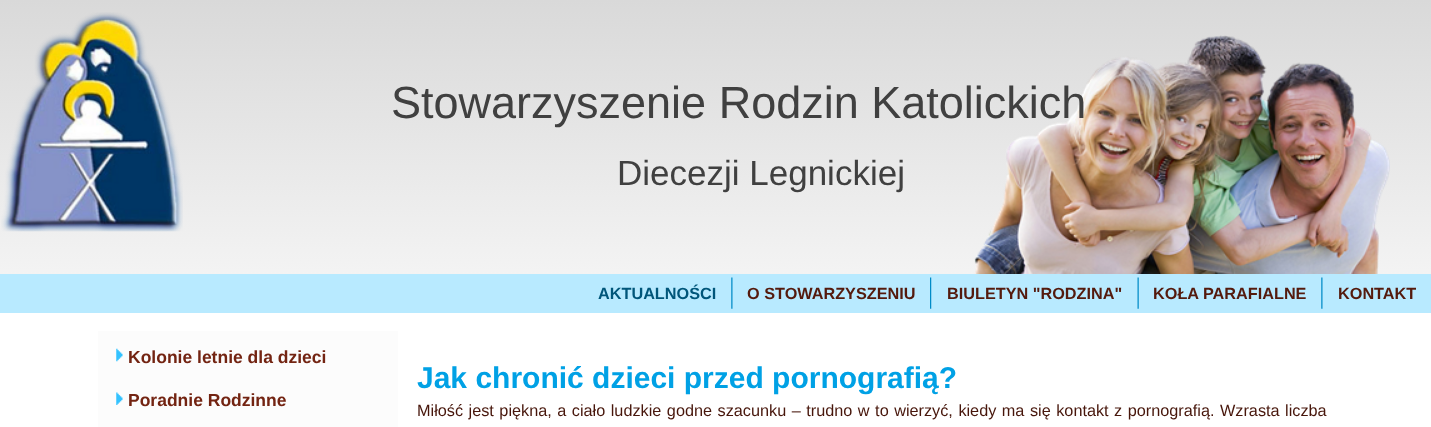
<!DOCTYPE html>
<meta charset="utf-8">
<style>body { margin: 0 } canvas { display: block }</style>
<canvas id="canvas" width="1431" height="427"></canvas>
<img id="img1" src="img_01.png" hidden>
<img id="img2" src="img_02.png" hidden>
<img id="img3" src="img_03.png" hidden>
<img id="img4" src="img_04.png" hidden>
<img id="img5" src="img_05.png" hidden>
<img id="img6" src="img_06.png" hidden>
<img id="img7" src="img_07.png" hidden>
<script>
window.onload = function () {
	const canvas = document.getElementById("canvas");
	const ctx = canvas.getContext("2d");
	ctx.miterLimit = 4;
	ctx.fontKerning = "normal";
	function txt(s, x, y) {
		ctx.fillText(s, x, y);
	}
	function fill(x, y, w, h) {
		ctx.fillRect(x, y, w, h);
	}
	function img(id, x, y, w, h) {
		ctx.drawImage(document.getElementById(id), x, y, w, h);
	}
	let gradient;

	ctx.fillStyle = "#FFFFFF";
	fill(0, 0, 1431, 427);
	gradient = ctx.createLinearGradient(716, 0, 716, 313);
	gradient.addColorStop(0, "#D9D9D9");
	gradient.addColorStop(1, "#F7F7F7");
	ctx.fillStyle = gradient;
	fill(0, 0, 1431, 274);
	img("img1", 1, 12, 182, 220);
	img("img2", 973, 35, 417, 239);
	ctx.fillStyle = "#B8EAFF";
	fill(0, 274, 1431, 39);
	img("img3", 731, 277, 2, 32);
	img("img4", 930, 277, 2, 32);
	img("img5", 1137, 277, 2, 32);
	img("img3", 1321, 277, 2, 32);
	ctx.fillStyle = "rgba(224, 224, 224, 0.1)";
	fill(98, 331, 300, 96);
	img("img6", 116, 348, 7, 14);
	img("img7", 116, 392, 7, 13);
	ctx.font = "45px Liberation Sans";
	ctx.fillStyle = "#404040";
	txt("Stowarzyszenie Rodzin Katolickich", 391, 118);
	ctx.font = "35px Liberation Sans";
	txt("Diecezji Legnickiej", 617, 185);
	ctx.font = "bold 16.25px Liberation Sans";
	ctx.fillStyle = "#00567A";
	txt("AKTUALNOŚCI", 598, 299);
	ctx.fillStyle = "#541A0D";
	txt("O STOWARZYSZENIU", 747, 299);
	txt("BIULETYN \"RODZINA\"", 947, 299);
	txt("KOŁA PARAFIALNE", 1153, 299);
	txt("KONTAKT", 1338, 299);
	ctx.font = "bold 17.5px Liberation Sans";
	ctx.fillStyle = "#732412";
	txt("Kolonie letnie dla dzieci", 128, 363);
	txt("Poradnie Rodzinne", 128, 406);
	ctx.font = "bold 30px Liberation Sans";
	ctx.fillStyle = "#00A1E5";
	txt("Jak chronić dzieci przed pornografią?", 417, 388);
	ctx.wordSpacing = "1px";
	ctx.font = "16.25px Liberation Sans";
	ctx.fillStyle = "#47160B";
	txt("Miłość jest piękna, a ciało ludzkie godne szacunku – trudno w to wierzyć, kiedy ma się kontakt z pornografią. Wzrasta liczba", 417, 416);
};
</script>
